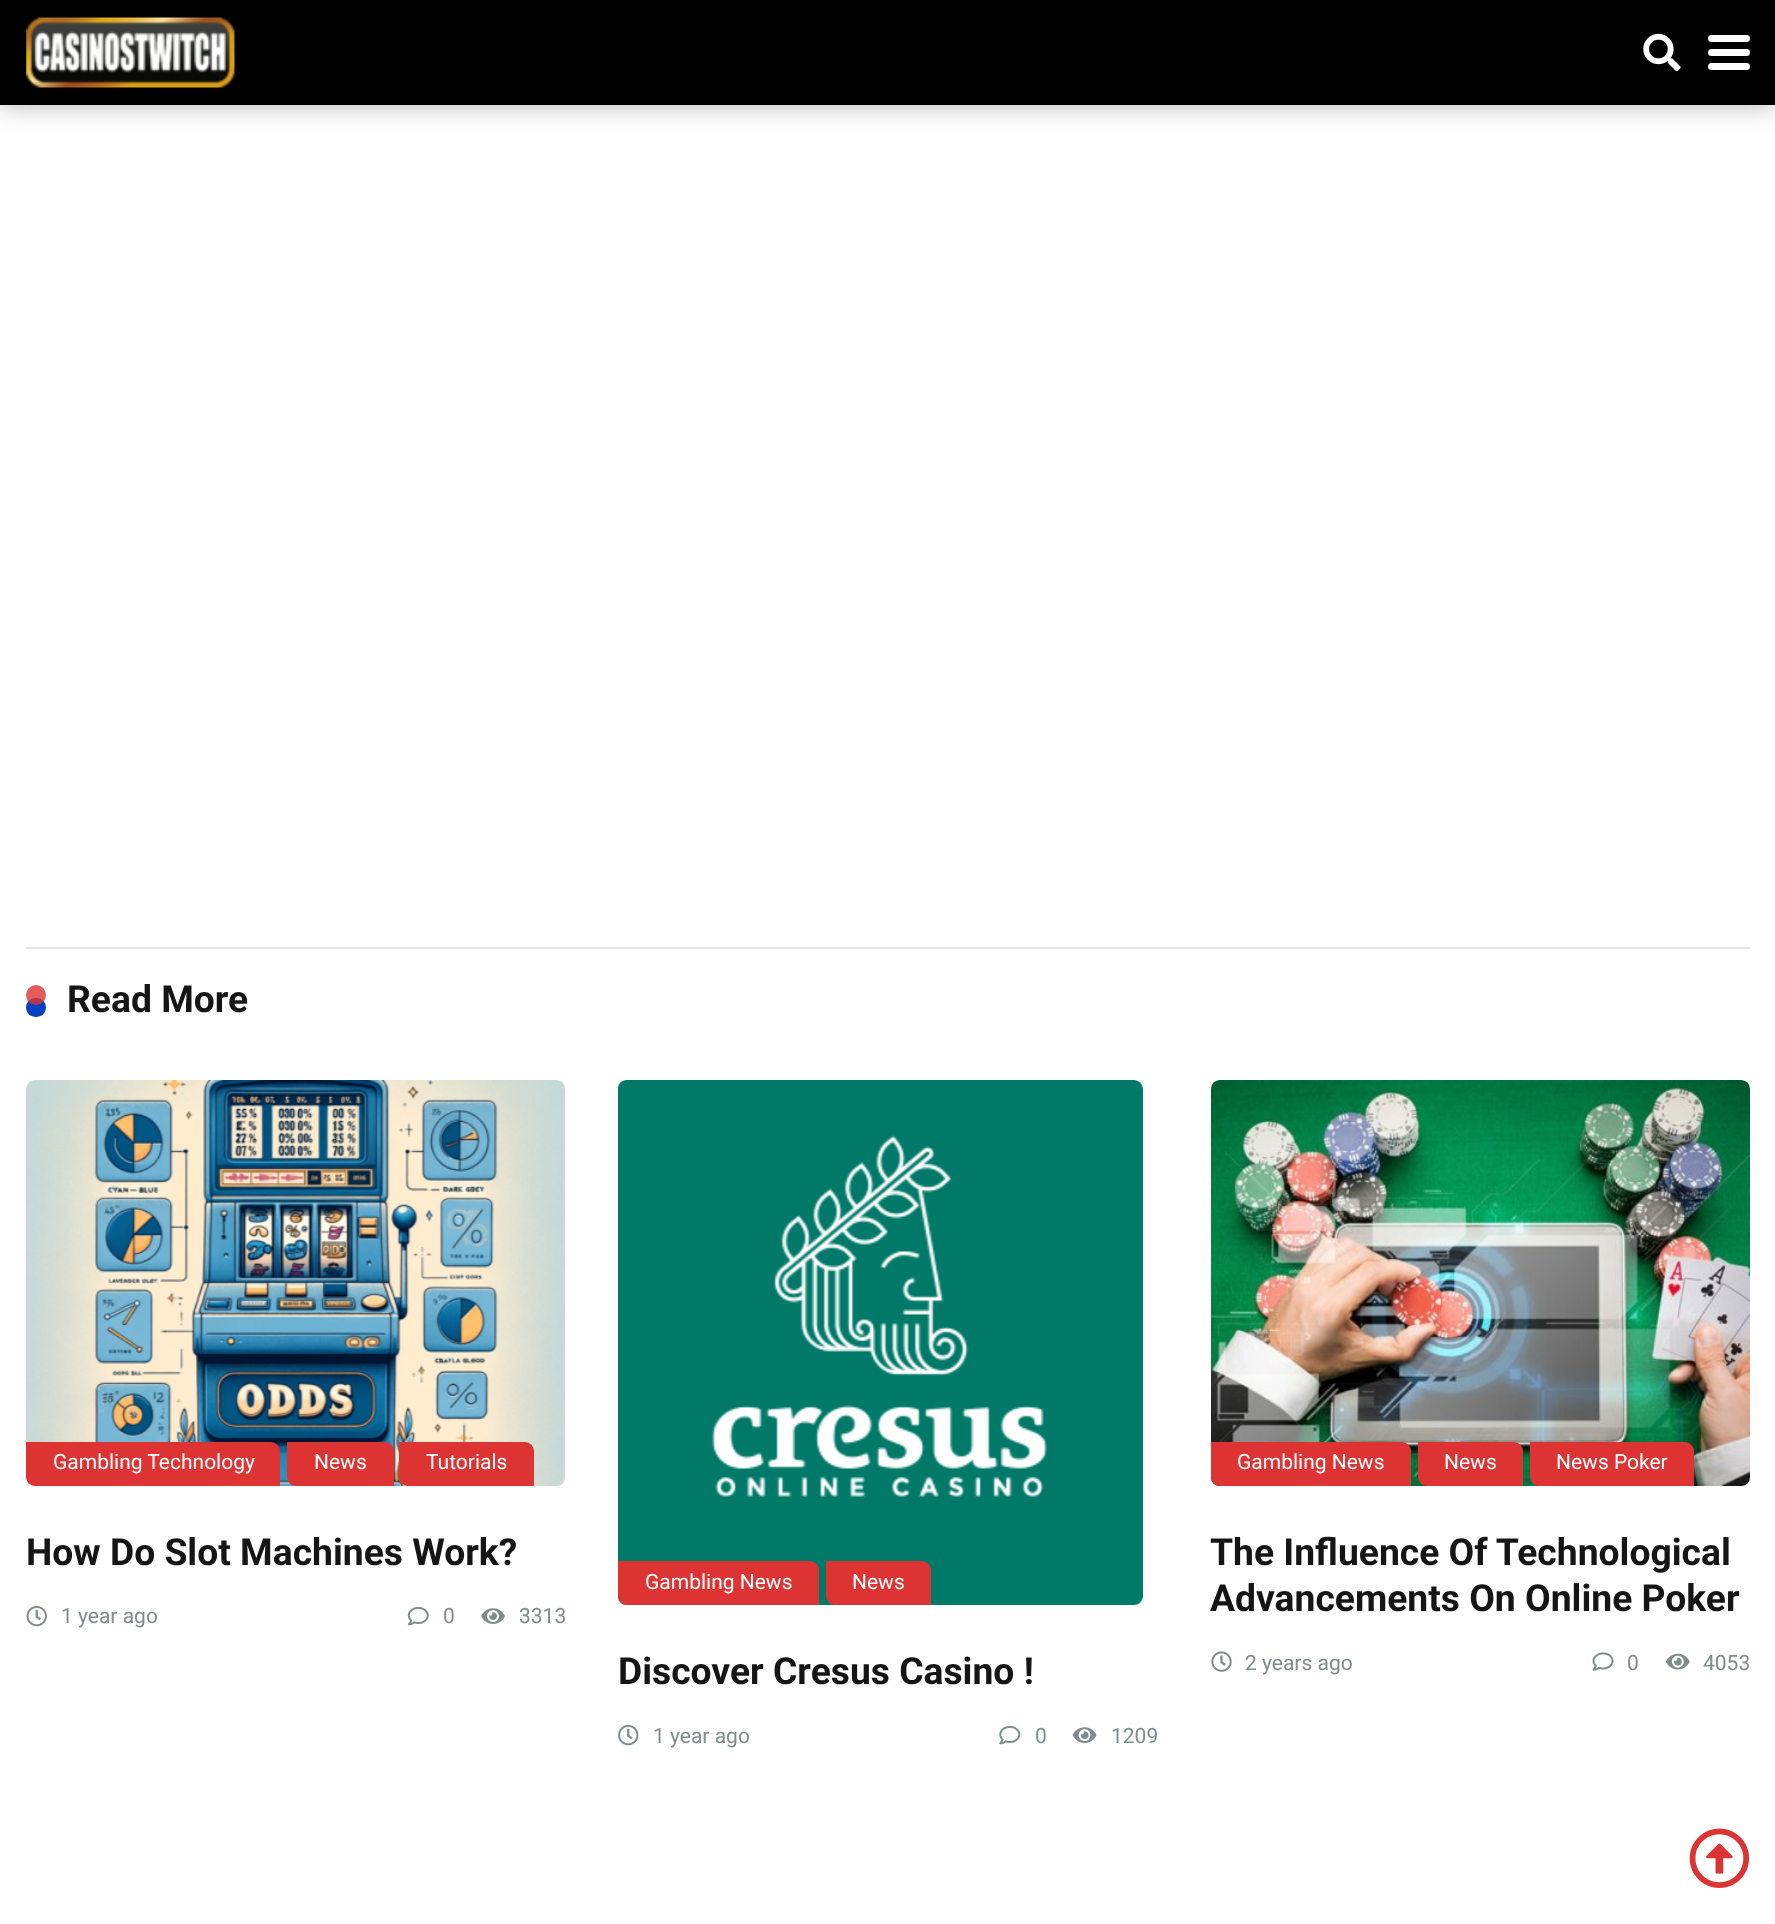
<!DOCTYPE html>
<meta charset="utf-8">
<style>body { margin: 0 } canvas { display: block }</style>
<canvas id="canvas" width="1775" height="1924"></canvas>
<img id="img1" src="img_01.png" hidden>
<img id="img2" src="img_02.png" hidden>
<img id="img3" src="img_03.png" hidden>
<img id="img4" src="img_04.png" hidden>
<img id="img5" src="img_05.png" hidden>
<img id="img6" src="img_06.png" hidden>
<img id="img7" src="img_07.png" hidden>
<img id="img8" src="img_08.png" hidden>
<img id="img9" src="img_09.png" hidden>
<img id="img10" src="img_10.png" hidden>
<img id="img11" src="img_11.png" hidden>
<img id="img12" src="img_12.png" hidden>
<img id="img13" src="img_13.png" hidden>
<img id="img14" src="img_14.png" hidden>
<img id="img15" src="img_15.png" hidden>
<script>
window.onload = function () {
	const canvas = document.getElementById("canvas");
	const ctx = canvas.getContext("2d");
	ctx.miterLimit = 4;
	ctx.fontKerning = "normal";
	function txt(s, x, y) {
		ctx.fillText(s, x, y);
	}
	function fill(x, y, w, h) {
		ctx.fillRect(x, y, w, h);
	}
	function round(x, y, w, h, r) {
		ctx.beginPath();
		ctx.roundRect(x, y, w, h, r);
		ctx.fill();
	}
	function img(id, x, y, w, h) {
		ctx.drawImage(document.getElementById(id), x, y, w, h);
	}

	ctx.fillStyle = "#FFFFFF";
	fill(0, 0, 1775, 1924);
	ctx.fillStyle = "rgba(0, 0, 0, 0.3)";
	ctx.filter = "blur(13px)";
	ctx.beginPath();
	ctx.rect(0, 0, 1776, 105);
	ctx.fill();
	ctx.filter = "none";
	ctx.fillStyle = "#000000";
	fill(0, 0, 1775, 105);
	img("img1", 26, 17, 209, 71);
	img("img2", 1643, 33, 38, 39);
	ctx.fillStyle = "#FFFFFF";
	round(1708, 35, 42, 7, 3.5);
	round(1708, 49, 42, 7, 3.5);
	round(1708, 63, 42, 7, 3.5);
	ctx.fillStyle = "#DFE6E9";
	fill(26, 947, 1724, 2);
	ctx.fillStyle = "#0041C4";
	round(26, 998, 20, 19, 9.5);
	ctx.fillStyle = "rgba(221, 51, 51, 0.8)";
	ctx.beginPath();
	ctx.arc(36, 995, 10, 0, Math.PI * 2);
	ctx.fill();
	img("img3", 26, 1080, 539, 406);
	ctx.fillStyle = "#DD3333";
	ctx.beginPath();
	ctx.roundRect(26, 1442, 254, 44, [0, 9, 0, 9]);
	ctx.fill();
	ctx.beginPath();
	ctx.roundRect(287, 1442, 107, 44, [0, 9, 0, 9]);
	ctx.fill();
	ctx.beginPath();
	ctx.roundRect(399, 1442, 135, 44, [0, 9, 0, 9]);
	ctx.fill();
	img("img4", 26, 1606, 21, 21);
	img("img5", 407, 1606, 22, 20);
	img("img6", 481, 1608, 24, 16);
	img("img7", 618, 1080, 525, 525);
	ctx.beginPath();
	ctx.roundRect(618, 1561, 201, 44, [0, 9, 0, 9]);
	ctx.fill();
	ctx.beginPath();
	ctx.roundRect(826, 1561, 105, 44, [0, 9, 0, 9]);
	ctx.fill();
	img("img8", 618, 1725, 21, 21);
	img("img9", 999, 1725, 22, 20);
	img("img10", 1072, 1727, 25, 16);
	img("img11", 1211, 1080, 539, 406);
	ctx.beginPath();
	ctx.roundRect(1211, 1442, 200, 44, [0, 9, 0, 9]);
	ctx.fill();
	ctx.beginPath();
	ctx.roundRect(1418, 1442, 105, 44, [0, 9, 0, 9]);
	ctx.fill();
	ctx.beginPath();
	ctx.roundRect(1530, 1442, 164, 44, [0, 9, 0, 9]);
	ctx.fill();
	img("img12", 1211, 1651, 21, 21);
	img("img13", 1592, 1652, 22, 19);
	img("img14", 1666, 1653, 24, 17);
	img("img15", 1689, 1828, 61, 60);
	ctx.font = "bold 37.25px Roboto";
	ctx.fillStyle = "#151515";
	txt("Read More", 67, 1012);
	ctx.font = "21px Roboto";
	ctx.fillStyle = "#FFFFFF";
	txt("Gambling Technology", 53, 1469);
	txt("News", 314, 1469);
	txt("Tutorials", 426, 1469);
	ctx.font = "bold 37.25px Roboto";
	ctx.fillStyle = "#151515";
	txt("How Do Slot Machines Work?", 26, 1565);
	ctx.font = "21px Roboto";
	ctx.fillStyle = "#7F8C8D";
	txt("1 year ago", 61, 1623);
	txt("0", 443, 1623);
	txt("3313", 519, 1623);
	ctx.fillStyle = "#FFFFFF";
	txt("Gambling News", 645, 1589);
	txt("News", 852, 1589);
	ctx.font = "bold 37.25px Roboto";
	ctx.fillStyle = "#151515";
	txt("Discover Cresus Casino !", 618, 1684);
	ctx.font = "21px Roboto";
	ctx.fillStyle = "#7F8C8D";
	txt("1 year ago", 653, 1743);
	txt("0", 1035, 1743);
	txt("1209", 1111, 1743);
	ctx.fillStyle = "#FFFFFF";
	txt("Gambling News", 1237, 1469);
	txt("News", 1444, 1469);
	txt("News Poker", 1556, 1469);
	ctx.font = "bold 37.25px Roboto";
	ctx.fillStyle = "#151515";
	txt("The Influence Of Technological", 1210, 1565);
	txt("Advancements On Online Poker", 1210, 1611);
	ctx.font = "21px Roboto";
	ctx.fillStyle = "#7F8C8D";
	txt("2 years ago", 1245, 1670);
	txt("0", 1627, 1670);
	txt("4053", 1703, 1670);
};
</script>
